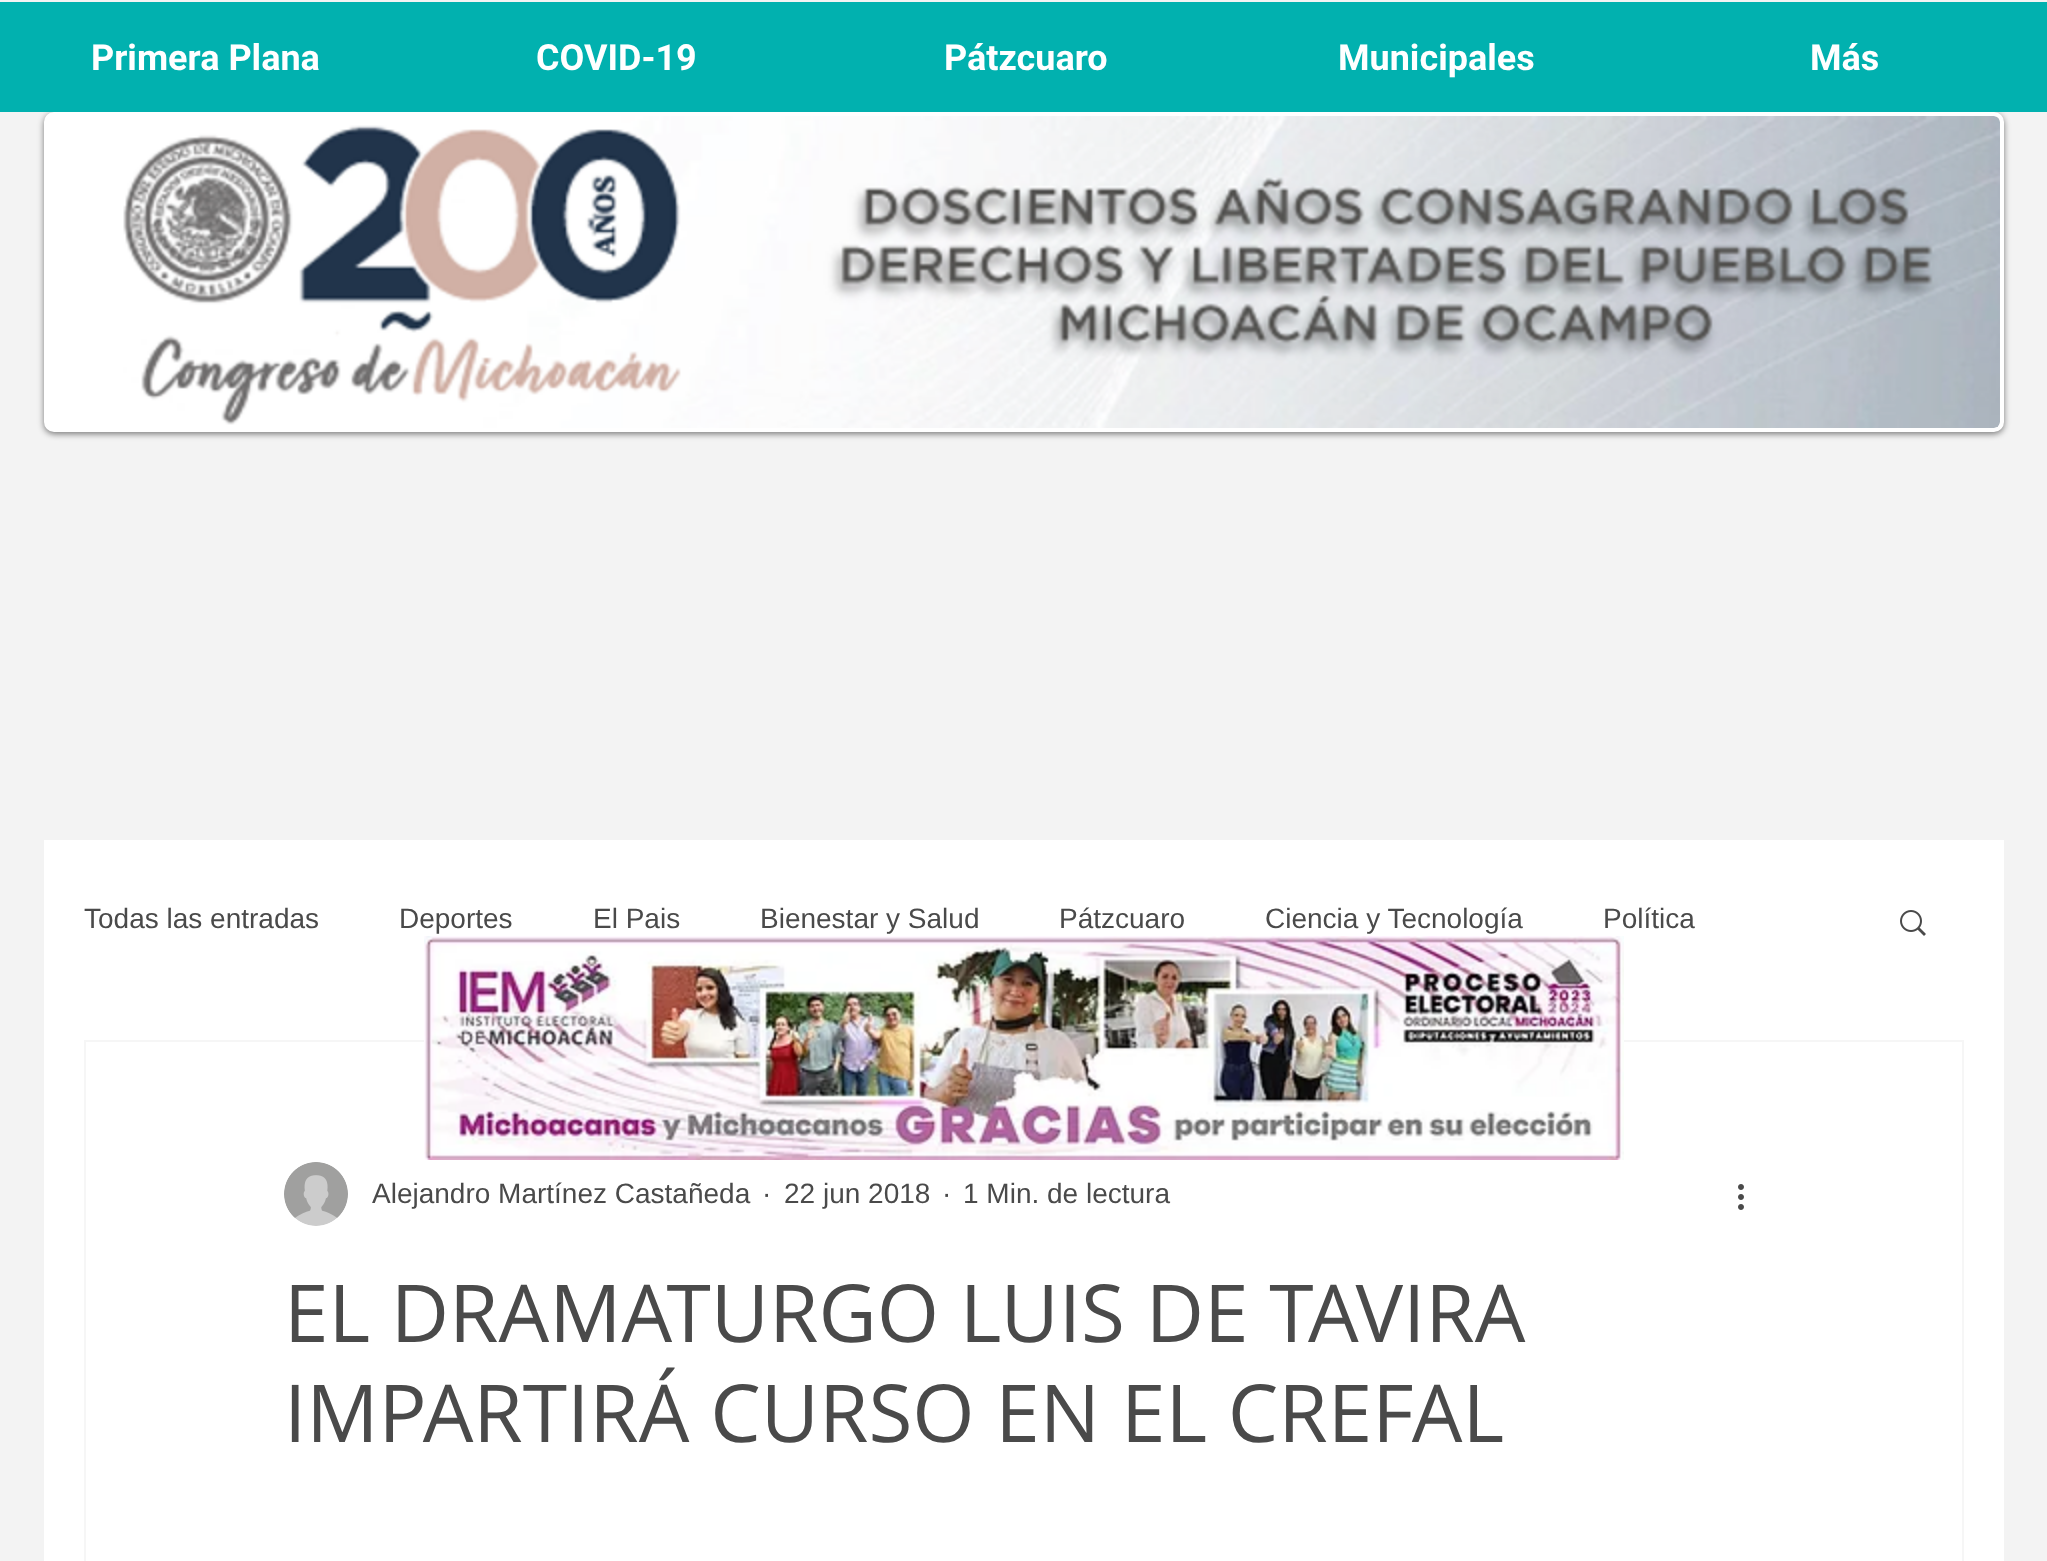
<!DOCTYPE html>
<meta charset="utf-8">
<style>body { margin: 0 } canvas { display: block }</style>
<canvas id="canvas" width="2047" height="1561"></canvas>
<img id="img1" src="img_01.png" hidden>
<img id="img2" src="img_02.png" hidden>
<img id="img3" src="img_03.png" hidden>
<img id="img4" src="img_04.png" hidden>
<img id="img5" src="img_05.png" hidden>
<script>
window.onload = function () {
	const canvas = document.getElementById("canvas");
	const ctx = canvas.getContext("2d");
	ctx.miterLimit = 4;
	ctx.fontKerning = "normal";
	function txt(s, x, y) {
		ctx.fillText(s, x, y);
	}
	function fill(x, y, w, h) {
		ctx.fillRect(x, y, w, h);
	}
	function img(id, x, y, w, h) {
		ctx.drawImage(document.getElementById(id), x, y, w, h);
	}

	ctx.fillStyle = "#F3F3F3";
	fill(0, 0, 2047, 1561);
	ctx.fillStyle = "rgba(0, 0, 0, 0.5)";
	ctx.filter = "blur(3px)";
	ctx.beginPath();
	ctx.roundRect(44, 114, 1960, 320, 10);
	ctx.fill();
	ctx.filter = "none";
	ctx.fillStyle = "#01B1AF";
	fill(0, 2, 2047, 110);
	ctx.fillStyle = "#FFFFFF";
	ctx.beginPath();
	ctx.roundRect(46, 114, 1956, 316, 8);
	ctx.fill();
	ctx.strokeStyle = "#FFFFFF";
	ctx.lineWidth = 4;
	ctx.stroke();
	img("img1", 123, 116, 1877, 312);
	fill(44, 840, 1960, 721);
	img("img2", 1900, 910, 26, 26);
	ctx.strokeStyle = "#F6F6F6";
	ctx.lineWidth = 2;
	ctx.strokeRect(85, 1041, 1878, 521);
	img("img3", 284, 1162, 64, 64);
	img("img4", 1738, 1184, 6, 26);
	img("img5", 424, 936, 1200, 224);
	ctx.font = "bold 36px Roboto";
	txt("Primera Plana", 91, 70);
	txt("COVID-19", 536, 70);
	txt("Pátzcuaro", 944, 70);
	txt("Municipales", 1338, 70);
	txt("Más", 1810, 70);
	ctx.font = "28px Liberation Sans";
	ctx.fillStyle = "#4A4A4A";
	txt("Todas las entradas", 84, 928);
	txt("Deportes", 399, 928);
	txt("El Pais", 593, 928);
	txt("Bienestar y Salud", 760, 928);
	txt("Pátzcuaro", 1059, 928);
	txt("Ciencia y Tecnología", 1265, 928);
	txt("Política", 1603, 928);
	txt("Alejandro Martínez Castañeda", 372, 1203);
	txt("·", 762, 1203);
	txt("22 jun 2018", 784, 1203);
	txt("·", 942, 1203);
	txt("1 Min. de lectura", 963, 1203);
	ctx.font = "80px Open Sans";
	txt("EL DRAMATURGO LUIS DE TAVIRA", 284, 1342);
	txt("IMPARTIRÁ CURSO EN EL CREFAL", 284, 1442);
};
</script>
